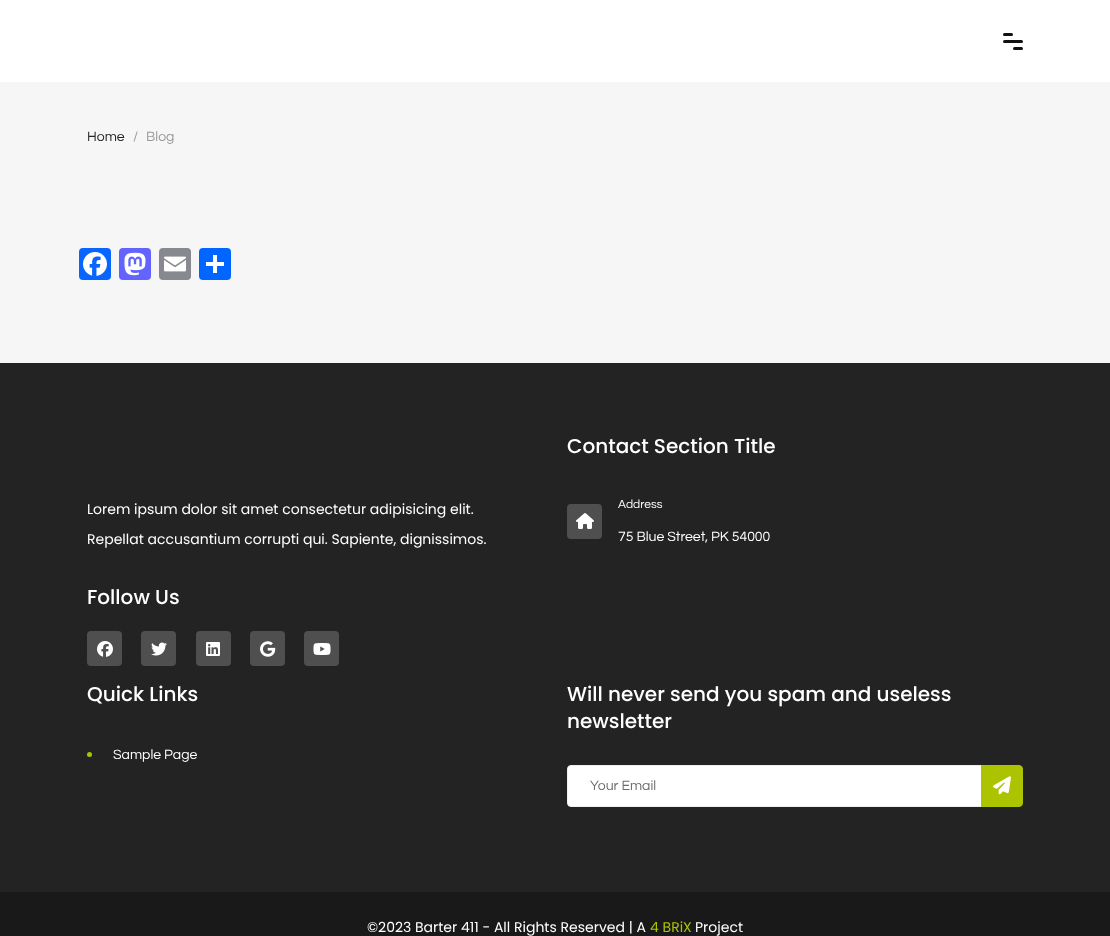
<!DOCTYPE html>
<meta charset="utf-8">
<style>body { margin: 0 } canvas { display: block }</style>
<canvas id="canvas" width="1110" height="936"></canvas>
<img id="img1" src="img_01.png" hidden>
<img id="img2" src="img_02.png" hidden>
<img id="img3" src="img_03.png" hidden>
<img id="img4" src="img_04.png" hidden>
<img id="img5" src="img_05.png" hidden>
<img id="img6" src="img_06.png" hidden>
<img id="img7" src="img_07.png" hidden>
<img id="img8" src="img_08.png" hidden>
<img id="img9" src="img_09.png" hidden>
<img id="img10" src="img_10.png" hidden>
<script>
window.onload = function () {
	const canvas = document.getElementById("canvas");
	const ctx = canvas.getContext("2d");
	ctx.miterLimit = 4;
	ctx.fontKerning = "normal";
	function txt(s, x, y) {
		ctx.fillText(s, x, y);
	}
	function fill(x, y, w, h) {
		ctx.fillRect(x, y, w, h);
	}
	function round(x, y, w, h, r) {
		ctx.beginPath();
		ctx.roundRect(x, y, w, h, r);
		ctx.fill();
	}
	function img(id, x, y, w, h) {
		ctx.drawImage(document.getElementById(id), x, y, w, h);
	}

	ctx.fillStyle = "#F6F6F6";
	fill(0, 0, 1110, 936);
	ctx.fillStyle = "#FFFFFF";
	fill(0, 0, 1110, 82);
	ctx.fillStyle = "#111111";
	round(1003, 33, 10, 3, 1.5);
	round(1003, 40, 20, 3, 1.5);
	round(1013, 47, 10, 3, 1.5);
	ctx.fillStyle = "#0866FF";
	round(79, 248, 32, 32, 4);
	img("img1", 83, 252, 24, 24);
	ctx.fillStyle = "#6364FF";
	round(119, 248, 32, 32, 4);
	img("img2", 124, 252, 22, 24);
	ctx.fillStyle = "#888990";
	round(159, 248, 32, 32, 4);
	img("img3", 164, 256, 22, 16);
	ctx.fillStyle = "#0166FF";
	round(199, 248, 32, 32, 4);
	ctx.fillStyle = "#FFFFFF";
	fill(213, 255, 4, 18);
	fill(206, 262, 18, 4);
	ctx.fillStyle = "#232323";
	fill(0, 363, 1110, 529);
	ctx.fillStyle = "#4F4F4F";
	round(567, 504, 35, 35, 4);
	img("img4", 576, 513, 18, 16);
	round(87, 631, 35, 35, 4);
	img("img5", 97, 641, 16, 16);
	round(141, 631, 35, 35, 4);
	img("img6", 151, 642, 16, 14);
	round(196, 631, 35, 35, 4);
	img("img7", 206, 642, 14, 14);
	round(250, 631, 35, 35, 4);
	img("img8", 260, 641, 16, 16);
	round(304, 631, 35, 35, 4);
	img("img9", 313, 643, 18, 12);
	ctx.fillStyle = "#ACC300";
	ctx.beginPath();
	ctx.arc(89.5, 754.5, 2.5, 0, Math.PI * 2);
	ctx.fill();
	ctx.fillStyle = "#FFFFFF";
	ctx.beginPath();
	ctx.roundRect(567.5, 765.5, 414, 41, [3.5, 0, 0, 3.5]);
	ctx.fill();
	ctx.strokeStyle = "#F0F0F0";
	ctx.stroke();
	ctx.fillStyle = "#ACC300";
	ctx.beginPath();
	ctx.roundRect(981.5, 765.5, 41, 41, [0, 3.5, 3.5, 0]);
	ctx.fill();
	ctx.strokeStyle = "#ACC300";
	ctx.stroke();
	img("img10", 993, 776, 18, 19);
	ctx.fillStyle = "#191919";
	fill(0, 892, 1110, 44);
	ctx.font = "14px Questrial";
	ctx.fillStyle = "#242424";
	txt("Home", 87, 141);
	ctx.fillStyle = "#999999";
	txt("/", 133, 141);
	txt("Blog", 146, 141);
	ctx.font = "500 20px Poppins";
	ctx.fillStyle = "#FFFFFF";
	txt("Contact Section Title", 567, 453);
	ctx.font = "12px Questrial";
	txt("Address", 618, 508);
	ctx.font = "14px Questrial";
	txt("75 Blue Street, PK 54000", 618, 541);
	ctx.font = "14px Poppins";
	txt("Lorem ipsum dolor sit amet consectetur adipisicing elit.", 87, 514);
	txt("Repellat accusantium corrupti qui. Sapiente, dignissimos.", 87, 544);
	ctx.font = "500 20px Poppins";
	txt("Follow Us", 87, 604);
	txt("Quick Links", 87, 701);
	ctx.font = "14px Questrial";
	txt("Sample Page", 113, 759);
	ctx.font = "500 20px Poppins";
	txt("Will never send you spam and useless", 567, 701);
	txt("newsletter", 567, 728);
	ctx.font = "14px Questrial";
	ctx.fillStyle = "#6D6D6D";
	txt("Your Email", 590, 790);
	ctx.font = "14px Poppins";
	ctx.fillStyle = "#FFFFFF";
	txt("©2023 Barter 411 - All Rights Reserved | A", 367, 932);
	ctx.fillStyle = "#ACC300";
	txt("4 BRiX", 650, 932);
	ctx.fillStyle = "#FFFFFF";
	txt("Project", 695, 932);
};
</script>
